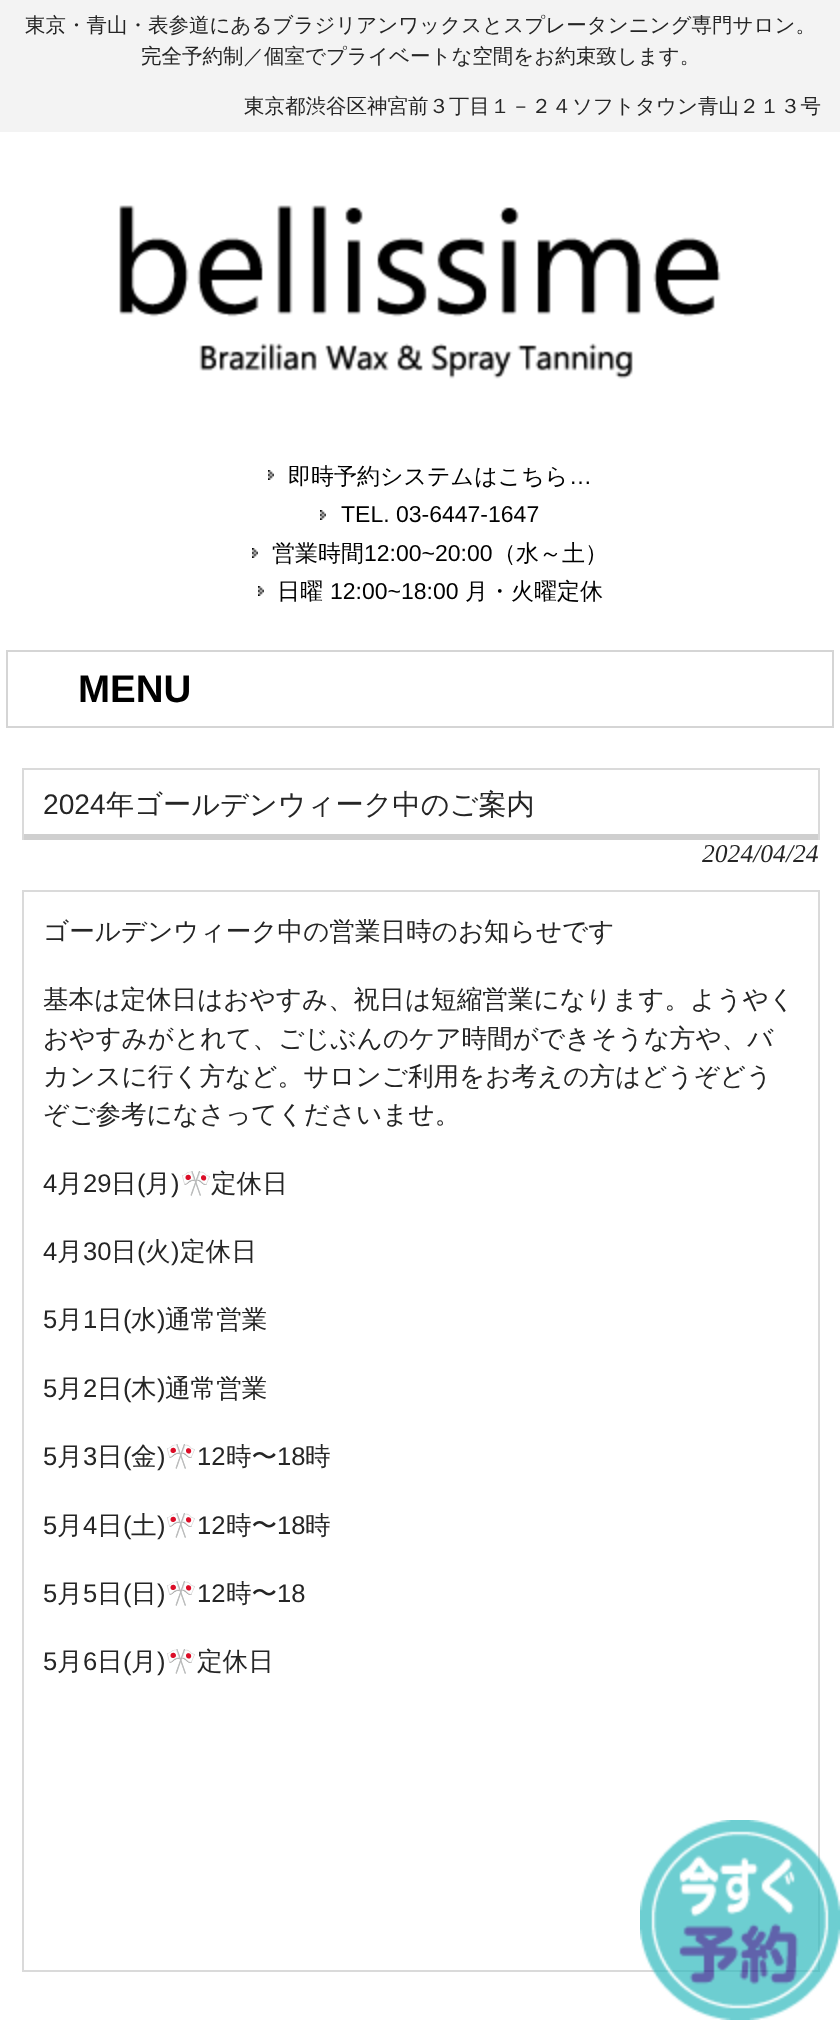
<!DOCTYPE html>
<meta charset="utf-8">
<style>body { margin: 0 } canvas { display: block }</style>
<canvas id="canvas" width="840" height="2030"></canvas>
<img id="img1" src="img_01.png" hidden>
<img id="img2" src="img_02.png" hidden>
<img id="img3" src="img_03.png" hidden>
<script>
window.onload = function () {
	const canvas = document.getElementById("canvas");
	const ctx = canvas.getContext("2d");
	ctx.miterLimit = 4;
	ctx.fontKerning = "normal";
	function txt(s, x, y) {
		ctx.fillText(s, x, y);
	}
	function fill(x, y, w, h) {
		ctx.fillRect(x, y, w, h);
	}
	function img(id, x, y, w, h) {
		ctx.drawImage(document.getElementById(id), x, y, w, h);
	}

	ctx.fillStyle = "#FFFFFF";
	fill(0, 0, 840, 2030);
	ctx.fillStyle = "#F3F3F3";
	fill(0, 0, 840, 132);
	img("img1", 119, 205, 602, 174);
	img("img2", 268, 470, 6, 10);
	img("img2", 320, 510, 6, 10);
	img("img2", 252, 548, 6, 10);
	img("img2", 258, 586, 6, 10);
	ctx.strokeStyle = "#D5D5D5";
	ctx.lineWidth = 2;
	ctx.strokeRect(7, 651, 826, 76);
	ctx.fillStyle = "#CFCFCF";
	fill(22, 834, 798, 6);
	ctx.fillStyle = "#DADADA";
	fill(22, 768, 798, 2);
	fill(818, 768, 2, 72);
	fill(22, 768, 2, 72);
	ctx.strokeStyle = "#DADADA";
	ctx.strokeRect(23, 891, 796, 1080);
	img("img3", 640, 1820, 200, 200);
	ctx.font = "500 20.5px WenQuanYi Zen Hei";
	ctx.fillStyle = "#252525";
	txt("東京・青山・表参道にあるブラジリアンワックスとスプレータンニング専門サロン。", 25, 32);
	txt("完全予約制／個室でプライベートな空間をお約束致します。", 141, 63);
	txt("東京都渋谷区神宮前３丁目１－２４ソフトタウン青山２１３号", 244, 113);
	ctx.font = "500 23px WenQuanYi Zen Hei";
	ctx.fillStyle = "#000000";
	txt("即時予約システムはこちら", 288, 484);
	ctx.font = "23px Liberation Sans";
	txt("…", 569, 484);
	txt("TEL. 03-6447-1647", 341, 522);
	ctx.font = "500 23px WenQuanYi Zen Hei";
	txt("営業時間", 272, 561);
	ctx.font = "23px Liberation Sans";
	txt("12:00~20:00", 364, 561);
	ctx.font = "500 23px WenQuanYi Zen Hei";
	txt("（水～土）", 493, 561);
	txt("日曜", 277, 599);
	ctx.font = "23px Liberation Sans";
	txt("12:00~18:00", 330, 599);
	ctx.font = "500 23px WenQuanYi Zen Hei";
	txt("月・火曜定休", 465, 599);
	ctx.font = "bold 38.5px Liberation Sans";
	txt("MENU", 78, 702);
	ctx.font = "28.2px Liberation Sans";
	ctx.fillStyle = "#252525";
	txt("2024", 43, 814);
	ctx.font = "500 28.2px WenQuanYi Zen Hei";
	txt("年ゴールデンウィーク中のご案内", 106, 814);
	ctx.font = "italic 25.6px Liberation Serif";
	txt("2024/04/24", 702, 862);
	ctx.font = "500 25.6px WenQuanYi Zen Hei";
	txt("ゴールデンウィーク中の営業日時のお知らせです", 43, 940);
	txt("基本は定休日はおやすみ、祝日は短縮営業になります。ようやく", 43, 1008);
	txt("おやすみがとれて、ごじぶんのケア時間ができそうな方や、バ", 43, 1047);
	txt("カンスに行く方など。サロンご利用をお考えの方はどうぞどう", 43, 1085);
	txt("ぞご参考になさってくださいませ。", 43, 1123);
	ctx.font = "25.6px Liberation Sans";
	txt("4", 43, 1192);
	ctx.font = "500 25.6px WenQuanYi Zen Hei";
	txt("月", 57, 1192);
	ctx.font = "25.6px Liberation Sans";
	txt("29", 83, 1192);
	ctx.font = "500 25.6px WenQuanYi Zen Hei";
	txt("日", 111, 1192);
	ctx.font = "25.6px Liberation Sans";
	txt("(", 137, 1192);
	ctx.font = "500 25.6px WenQuanYi Zen Hei";
	txt("月", 145, 1192);
	ctx.font = "25.6px Liberation Sans";
	txt(")", 171, 1192);
	ctx.font = "25.6px Noto Color Emoji";
	txt("🎌", 180, 1192);
	ctx.font = "500 25.6px WenQuanYi Zen Hei";
	txt("定休日", 211, 1192);
	ctx.font = "25.6px Liberation Sans";
	txt("4", 43, 1260);
	ctx.font = "500 25.6px WenQuanYi Zen Hei";
	txt("月", 57, 1260);
	ctx.font = "25.6px Liberation Sans";
	txt("30", 83, 1260);
	ctx.font = "500 25.6px WenQuanYi Zen Hei";
	txt("日", 111, 1260);
	ctx.font = "25.6px Liberation Sans";
	txt("(", 137, 1260);
	ctx.font = "500 25.6px WenQuanYi Zen Hei";
	txt("火", 145, 1260);
	ctx.font = "25.6px Liberation Sans";
	txt(")", 171, 1260);
	ctx.font = "500 25.6px WenQuanYi Zen Hei";
	txt("定休日", 180, 1260);
	ctx.font = "25.6px Liberation Sans";
	txt("5", 43, 1328);
	ctx.font = "500 25.6px WenQuanYi Zen Hei";
	txt("月", 57, 1328);
	ctx.font = "25.6px Liberation Sans";
	txt("1", 83, 1328);
	ctx.font = "500 25.6px WenQuanYi Zen Hei";
	txt("日", 97, 1328);
	ctx.font = "25.6px Liberation Sans";
	txt("(", 123, 1328);
	ctx.font = "500 25.6px WenQuanYi Zen Hei";
	txt("水", 131, 1328);
	ctx.font = "25.6px Liberation Sans";
	txt(")", 157, 1328);
	ctx.font = "500 25.6px WenQuanYi Zen Hei";
	txt("通常営業", 165, 1328);
	ctx.font = "25.6px Liberation Sans";
	txt("5", 43, 1397);
	ctx.font = "500 25.6px WenQuanYi Zen Hei";
	txt("月", 57, 1397);
	ctx.font = "25.6px Liberation Sans";
	txt("2", 83, 1397);
	ctx.font = "500 25.6px WenQuanYi Zen Hei";
	txt("日", 97, 1397);
	ctx.font = "25.6px Liberation Sans";
	txt("(", 123, 1397);
	ctx.font = "500 25.6px WenQuanYi Zen Hei";
	txt("木", 131, 1397);
	ctx.font = "25.6px Liberation Sans";
	txt(")", 157, 1397);
	ctx.font = "500 25.6px WenQuanYi Zen Hei";
	txt("通常営業", 165, 1397);
	ctx.font = "25.6px Liberation Sans";
	txt("5", 43, 1465);
	ctx.font = "500 25.6px WenQuanYi Zen Hei";
	txt("月", 57, 1465);
	ctx.font = "25.6px Liberation Sans";
	txt("3", 83, 1465);
	ctx.font = "500 25.6px WenQuanYi Zen Hei";
	txt("日", 97, 1465);
	ctx.font = "25.6px Liberation Sans";
	txt("(", 123, 1465);
	ctx.font = "500 25.6px WenQuanYi Zen Hei";
	txt("金", 131, 1465);
	ctx.font = "25.6px Liberation Sans";
	txt(")", 157, 1465);
	ctx.font = "25.6px Noto Color Emoji";
	txt("🎌", 165, 1465);
	ctx.font = "25.6px Liberation Sans";
	txt("12", 197, 1465);
	ctx.font = "500 25.6px WenQuanYi Zen Hei";
	txt("時〜", 226, 1465);
	ctx.font = "25.6px Liberation Sans";
	txt("18", 277, 1465);
	ctx.font = "500 25.6px WenQuanYi Zen Hei";
	txt("時", 305, 1465);
	ctx.font = "25.6px Liberation Sans";
	txt("5", 43, 1534);
	ctx.font = "500 25.6px WenQuanYi Zen Hei";
	txt("月", 57, 1534);
	ctx.font = "25.6px Liberation Sans";
	txt("4", 83, 1534);
	ctx.font = "500 25.6px WenQuanYi Zen Hei";
	txt("日", 97, 1534);
	ctx.font = "25.6px Liberation Sans";
	txt("(", 123, 1534);
	ctx.font = "500 25.6px WenQuanYi Zen Hei";
	txt("土", 131, 1534);
	ctx.font = "25.6px Liberation Sans";
	txt(")", 157, 1534);
	ctx.font = "25.6px Noto Color Emoji";
	txt("🎌", 165, 1534);
	ctx.font = "25.6px Liberation Sans";
	txt("12", 197, 1534);
	ctx.font = "500 25.6px WenQuanYi Zen Hei";
	txt("時〜", 226, 1534);
	ctx.font = "25.6px Liberation Sans";
	txt("18", 277, 1534);
	ctx.font = "500 25.6px WenQuanYi Zen Hei";
	txt("時", 305, 1534);
	ctx.font = "25.6px Liberation Sans";
	txt("5", 43, 1602);
	ctx.font = "500 25.6px WenQuanYi Zen Hei";
	txt("月", 57, 1602);
	ctx.font = "25.6px Liberation Sans";
	txt("5", 83, 1602);
	ctx.font = "500 25.6px WenQuanYi Zen Hei";
	txt("日", 97, 1602);
	ctx.font = "25.6px Liberation Sans";
	txt("(", 123, 1602);
	ctx.font = "500 25.6px WenQuanYi Zen Hei";
	txt("日", 131, 1602);
	ctx.font = "25.6px Liberation Sans";
	txt(")", 157, 1602);
	ctx.font = "25.6px Noto Color Emoji";
	txt("🎌", 165, 1602);
	ctx.font = "25.6px Liberation Sans";
	txt("12", 197, 1602);
	ctx.font = "500 25.6px WenQuanYi Zen Hei";
	txt("時〜", 226, 1602);
	ctx.font = "25.6px Liberation Sans";
	txt("18", 277, 1602);
	txt("5", 43, 1670);
	ctx.font = "500 25.6px WenQuanYi Zen Hei";
	txt("月", 57, 1670);
	ctx.font = "25.6px Liberation Sans";
	txt("6", 83, 1670);
	ctx.font = "500 25.6px WenQuanYi Zen Hei";
	txt("日", 97, 1670);
	ctx.font = "25.6px Liberation Sans";
	txt("(", 123, 1670);
	ctx.font = "500 25.6px WenQuanYi Zen Hei";
	txt("月", 131, 1670);
	ctx.font = "25.6px Liberation Sans";
	txt(")", 157, 1670);
	ctx.font = "25.6px Noto Color Emoji";
	txt("🎌", 165, 1670);
	ctx.font = "500 25.6px WenQuanYi Zen Hei";
	txt("定休日", 197, 1670);
};
</script>
